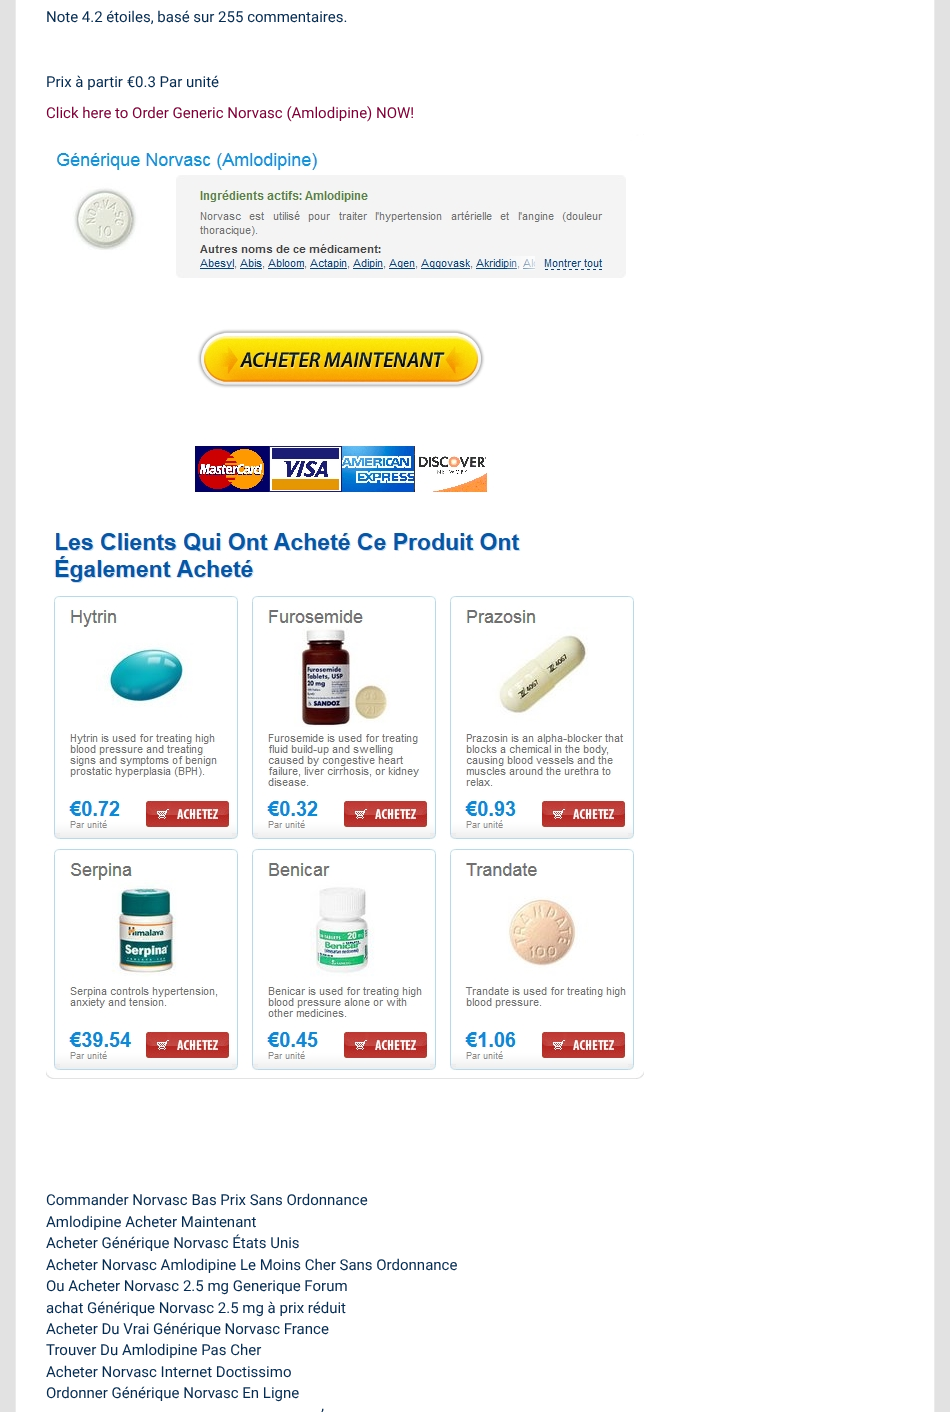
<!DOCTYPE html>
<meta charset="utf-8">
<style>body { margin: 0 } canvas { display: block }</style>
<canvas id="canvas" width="950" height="1412"></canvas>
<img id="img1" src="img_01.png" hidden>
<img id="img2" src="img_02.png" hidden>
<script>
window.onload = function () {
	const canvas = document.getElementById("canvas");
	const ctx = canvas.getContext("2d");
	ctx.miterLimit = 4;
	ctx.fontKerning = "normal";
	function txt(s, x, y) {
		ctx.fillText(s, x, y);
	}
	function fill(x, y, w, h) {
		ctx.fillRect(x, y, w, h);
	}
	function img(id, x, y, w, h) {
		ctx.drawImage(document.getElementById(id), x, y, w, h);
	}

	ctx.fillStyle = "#E2E2E2";
	fill(0, 0, 950, 1412);
	ctx.fillStyle = "#FFFFFF";
	fill(16, 0, 918, 1412);
	ctx.fillStyle = "#EBEBEB";
	fill(934, 0, 1, 1412);
	fill(15, 0, 1, 1412);
	img("img1", 55, 134, 589, 359);
	img("img2", 46, 531, 598, 548);
	ctx.font = "15px Roboto";
	ctx.fillStyle = "#092B4C";
	txt("Note 4.2 étoiles, basé sur 255 commentaires.", 46, 22);
	txt("Prix à partir €0.3 Par unité", 46, 87);
	ctx.fillStyle = "#720536";
	txt("Click here to Order Generic Norvasc (Amlodipine) NOW!", 46, 118);
	ctx.fillStyle = "#092B4C";
	txt("Commander Norvasc Bas Prix Sans Ordonnance", 46, 1205);
	txt("Amlodipine Acheter Maintenant", 46, 1227);
	txt("Acheter Générique Norvasc États Unis", 46, 1248);
	txt("Acheter Norvasc Amlodipine Le Moins Cher Sans Ordonnance", 46, 1270);
	txt("Ou Acheter Norvasc 2.5 mg Generique Forum", 46, 1291);
	txt("achat Générique Norvasc 2.5 mg à prix réduit", 46, 1313);
	txt("Acheter Du Vrai Générique Norvasc France", 46, 1334);
	txt("Trouver Du Amlodipine Pas Cher", 46, 1355);
	txt("Acheter Norvasc Internet Doctissimo", 46, 1377);
	txt("Ordonner Générique Norvasc En Ligne", 46, 1398);
	txt("’", 321, 1420);
};
</script>
